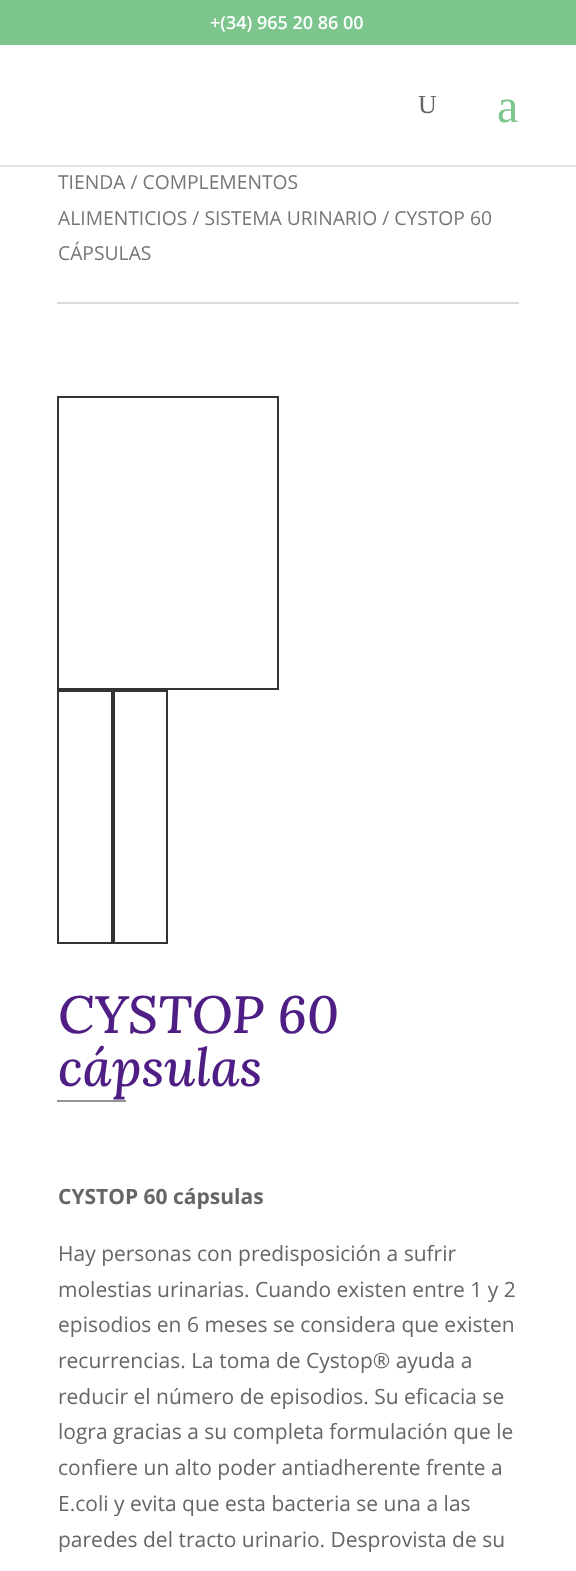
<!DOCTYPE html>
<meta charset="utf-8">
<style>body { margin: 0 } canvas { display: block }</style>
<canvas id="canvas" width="576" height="1571"></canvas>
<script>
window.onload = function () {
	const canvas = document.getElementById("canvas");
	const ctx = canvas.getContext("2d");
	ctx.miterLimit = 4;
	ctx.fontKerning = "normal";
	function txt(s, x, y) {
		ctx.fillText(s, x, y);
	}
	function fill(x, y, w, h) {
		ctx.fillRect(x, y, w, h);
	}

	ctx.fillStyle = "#FFFFFF";
	fill(0, 0, 576, 1571);
	ctx.fillStyle = "#7CC68D";
	fill(0, 0, 576, 45);
	ctx.fillStyle = "#E6E6E6";
	fill(0, 165, 576, 2);
	ctx.fillStyle = "#DBDBDB";
	fill(57, 302, 462, 2);
	ctx.strokeStyle = "#333333";
	ctx.lineWidth = 2;
	ctx.strokeRect(58, 397, 220, 292);
	ctx.strokeRect(58, 691, 54, 252);
	ctx.strokeRect(114, 691, 53, 252);
	ctx.fillStyle = "#939393";
	fill(57, 1100, 69, 2);
	ctx.font = "600 18px Open Sans";
	ctx.fillStyle = "#FFFFFF";
	txt("+(34) 965 20 86 00", 210, 29);
	ctx.font = "26px Liberation Serif";
	ctx.fillStyle = "#666666";
	txt("U", 418, 113);
	ctx.font = "48px Liberation Serif";
	ctx.fillStyle = "#7CC68D";
	txt("a", 497, 122);
	ctx.font = "19.3px Open Sans";
	ctx.fillStyle = "#767676";
	txt("TIENDA / COMPLEMENTOS", 58, 189);
	txt("ALIMENTICIOS / SISTEMA URINARIO / CYSTOP 60", 58, 225);
	txt("CÁPSULAS", 58, 260);
	ctx.font = "italic 500 52.5px Lora";
	ctx.fillStyle = "#4F1E84";
	txt("CYSTOP 60", 58, 1033);
	txt("cápsulas", 58, 1086);
	ctx.font = "bold 21px Open Sans";
	ctx.fillStyle = "#666666";
	txt("CYSTOP 60 cápsulas", 58, 1204);
	ctx.font = "21px Open Sans";
	txt("Hay personas con predisposición a sufrir", 58, 1261);
	txt("molestias urinarias. Cuando existen entre 1 y 2", 58, 1297);
	txt("episodios en 6 meses se considera que existen", 58, 1332);
	txt("recurrencias. La toma de Cystop® ayuda a", 58, 1368);
	txt("reducir el número de episodios. Su eficacia se", 58, 1404);
	txt("logra gracias a su completa formulación que le", 58, 1439);
	txt("confiere un alto poder antiadherente frente a", 58, 1475);
	txt("E.coli y evita que esta bacteria se una a las", 58, 1511);
	txt("paredes del tracto urinario. Desprovista de su", 58, 1547);
};
</script>
